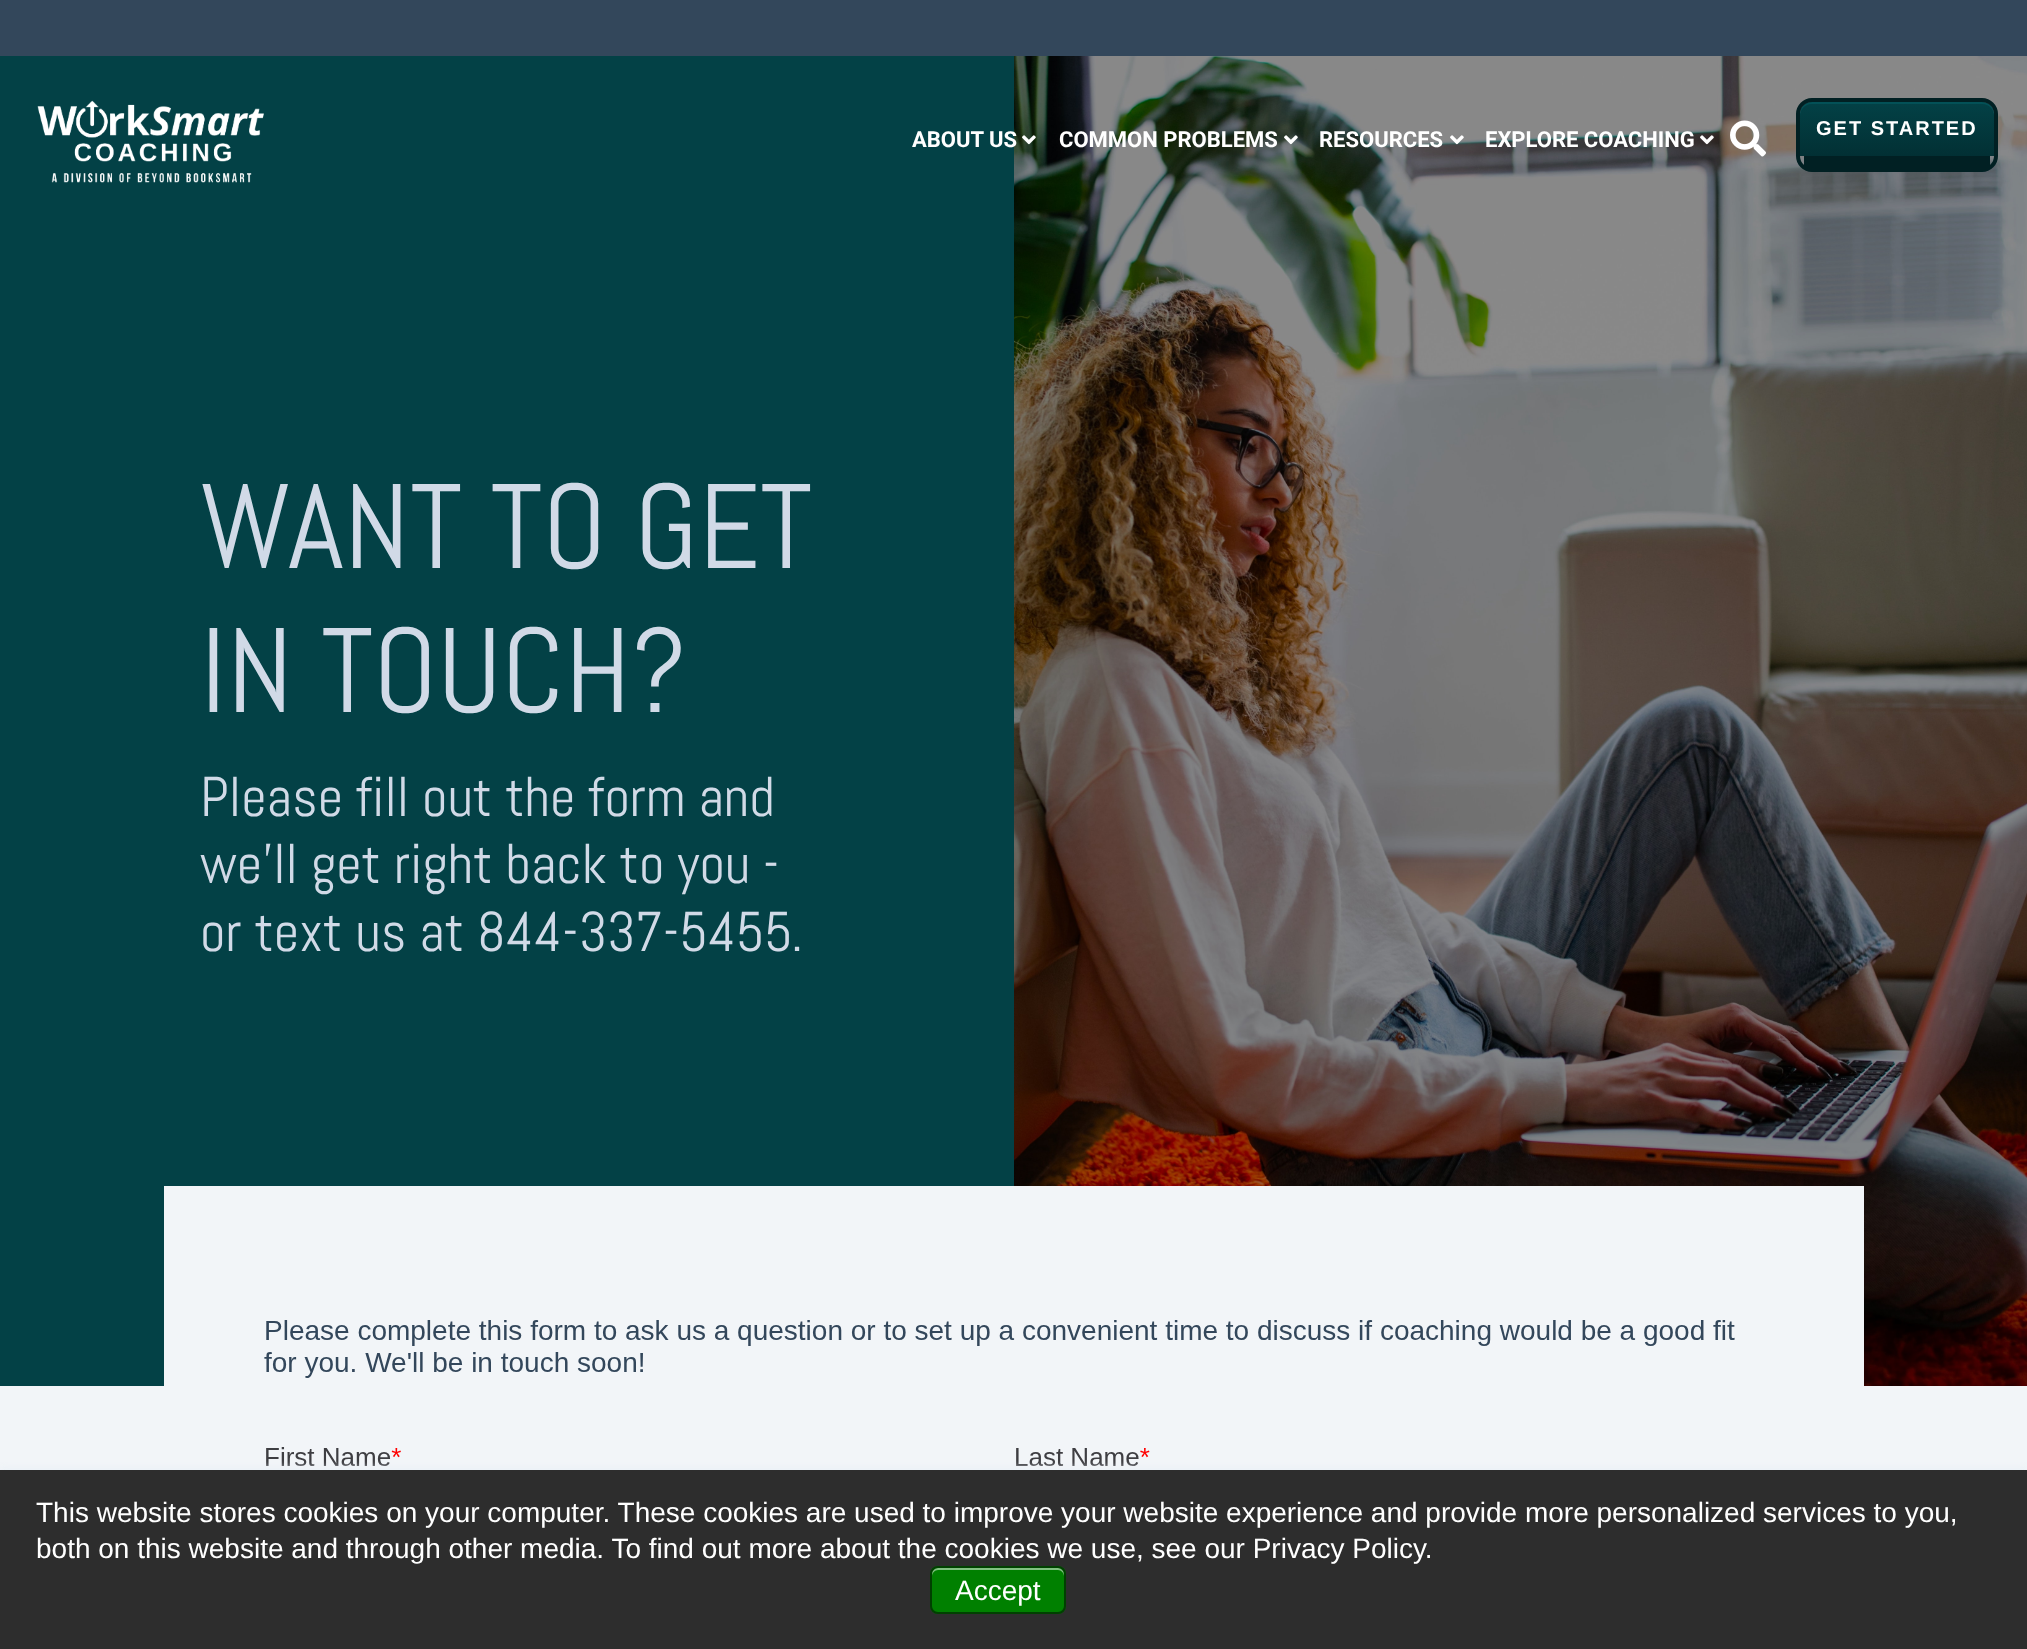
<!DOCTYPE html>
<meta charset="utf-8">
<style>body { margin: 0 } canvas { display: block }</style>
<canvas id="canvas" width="2027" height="1649"></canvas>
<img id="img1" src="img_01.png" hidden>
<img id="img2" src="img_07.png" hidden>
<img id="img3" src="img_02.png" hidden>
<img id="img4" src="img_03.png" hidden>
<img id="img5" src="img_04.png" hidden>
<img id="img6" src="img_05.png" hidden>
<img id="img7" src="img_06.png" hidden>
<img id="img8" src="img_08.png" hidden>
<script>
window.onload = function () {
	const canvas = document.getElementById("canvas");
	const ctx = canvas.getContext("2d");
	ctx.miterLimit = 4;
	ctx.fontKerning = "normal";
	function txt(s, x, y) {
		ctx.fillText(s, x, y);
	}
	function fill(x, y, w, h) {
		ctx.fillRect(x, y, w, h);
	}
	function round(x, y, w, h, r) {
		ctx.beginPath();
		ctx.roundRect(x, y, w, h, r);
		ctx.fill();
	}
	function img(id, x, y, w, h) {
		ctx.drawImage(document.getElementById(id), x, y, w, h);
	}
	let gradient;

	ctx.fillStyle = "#034146";
	fill(0, 0, 2027, 1649);
	ctx.fillStyle = "#33475B";
	fill(0, 0, 2027, 56);
	img("img1", 37, 100, 227, 83);
	img("img2", 1014, 56, 1013, 1330);
	img("img3", 1730, 120, 36, 37);
	gradient = ctx.createLinearGradient(1897, 102, 1897, 156);
	gradient.addColorStop(0, "#034146");
	gradient.addColorStop(1, "#023034");
	ctx.fillStyle = gradient;
	ctx.beginPath();
	ctx.moveTo(1812, 102);
	ctx.lineTo(1982, 102);
	ctx.bezierCurveTo(1989, 102, 1994, 107, 1994, 114);
	ctx.lineTo(1994, 156);
	ctx.lineTo(1800, 156);
	ctx.lineTo(1800, 114);
	ctx.bezierCurveTo(1800, 107, 1805, 102, 1812, 102);
	ctx.closePath();
	ctx.fill();
	ctx.fillStyle = "#035157";
	ctx.beginPath();
	ctx.moveTo(1812, 104);
	ctx.lineTo(1982, 104);
	ctx.bezierCurveTo(1989, 104, 1994, 109, 1994, 116);
	ctx.lineTo(1994, 114);
	ctx.bezierCurveTo(1994, 107, 1989, 102, 1982, 102);
	ctx.lineTo(1812, 102);
	ctx.bezierCurveTo(1805, 102, 1800, 107, 1800, 114);
	ctx.lineTo(1800, 116);
	ctx.bezierCurveTo(1800, 109, 1805, 104, 1812, 104);
	ctx.closePath();
	ctx.fill();
	ctx.beginPath();
	ctx.roundRect(1798, 100, 198, 70, 14);
	ctx.strokeStyle = "#012023";
	ctx.lineWidth = 4;
	ctx.stroke();
	ctx.fillStyle = "#012023";
	fill(1804, 156, 186, 12);
	img("img4", 1022, 135, 14, 10);
	img("img5", 1284, 135, 14, 10);
	img("img6", 1450, 135, 14, 10);
	img("img7", 1700, 135, 14, 10);
	ctx.fillStyle = "#F2F5F8";
	fill(0, 1386, 2027, 84);
	fill(164, 1186, 1700, 200);
	img("img8", 264, 1320, 1471, 146);
	ctx.fillStyle = "#EAF0F6";
	ctx.filter = "blur(3px)";
	ctx.beginPath();
	ctx.rect(0, 1468, 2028, 180);
	ctx.fill();
	ctx.filter = "none";
	ctx.fillStyle = "#2D2D2D";
	fill(0, 1470, 2027, 179);
	ctx.fillStyle = "#008000";
	round(930, 1566, 136, 48, 8);
	ctx.fillStyle = "#80C080";
	ctx.beginPath();
	ctx.moveTo(938, 1570);
	ctx.lineTo(1058, 1570);
	ctx.bezierCurveTo(1061, 1570, 1064, 1573, 1064, 1576);
	ctx.lineTo(1064, 1574);
	ctx.bezierCurveTo(1064, 1571, 1061, 1568, 1058, 1568);
	ctx.lineTo(938, 1568);
	ctx.bezierCurveTo(935, 1568, 932, 1571, 932, 1574);
	ctx.lineTo(932, 1576);
	ctx.bezierCurveTo(932, 1573, 935, 1570, 938, 1570);
	ctx.closePath();
	ctx.fill();
	ctx.beginPath();
	ctx.roundRect(931, 1567, 134, 46, 7);
	ctx.strokeStyle = "rgba(0, 0, 0, 0.5)";
	ctx.lineWidth = 2;
	ctx.stroke();
	ctx.letterSpacing = "2px";
	ctx.font = "bold 20px Liberation Sans";
	ctx.fillStyle = "#FFFFFF";
	txt("GET STARTED", 1816, 135);
	ctx.letterSpacing = "0px";
	ctx.font = "bold 22px Roboto";
	txt("ABOUT US", 912, 147);
	txt("COMMON PROBLEMS", 1059, 147);
	txt("RESOURCES", 1319, 147);
	txt("EXPLORE COACHING", 1485, 147);
	ctx.font = "120px Abel";
	ctx.fillStyle = "#D1DAE7";
	txt("WANT TO GET", 200, 568);
	txt("IN TOUCH?", 200, 712);
	ctx.font = "56px Abel";
	txt("Please fill out the form and", 200, 816);
	txt("we'll get right back to you -", 200, 883);
	txt("or text us at 844-337-5455.", 200, 951);
	ctx.font = "28px Liberation Sans";
	ctx.fillStyle = "#FFFFFF";
	txt("This website stores cookies on your computer. These cookies are used to improve your website experience and provide more personalized services to you,", 36, 1522);
	txt("both on this website and through other media. To find out more about the cookies we use, see our Privacy Policy.", 36, 1558);
	txt("Accept", 955, 1600);
};
</script>
